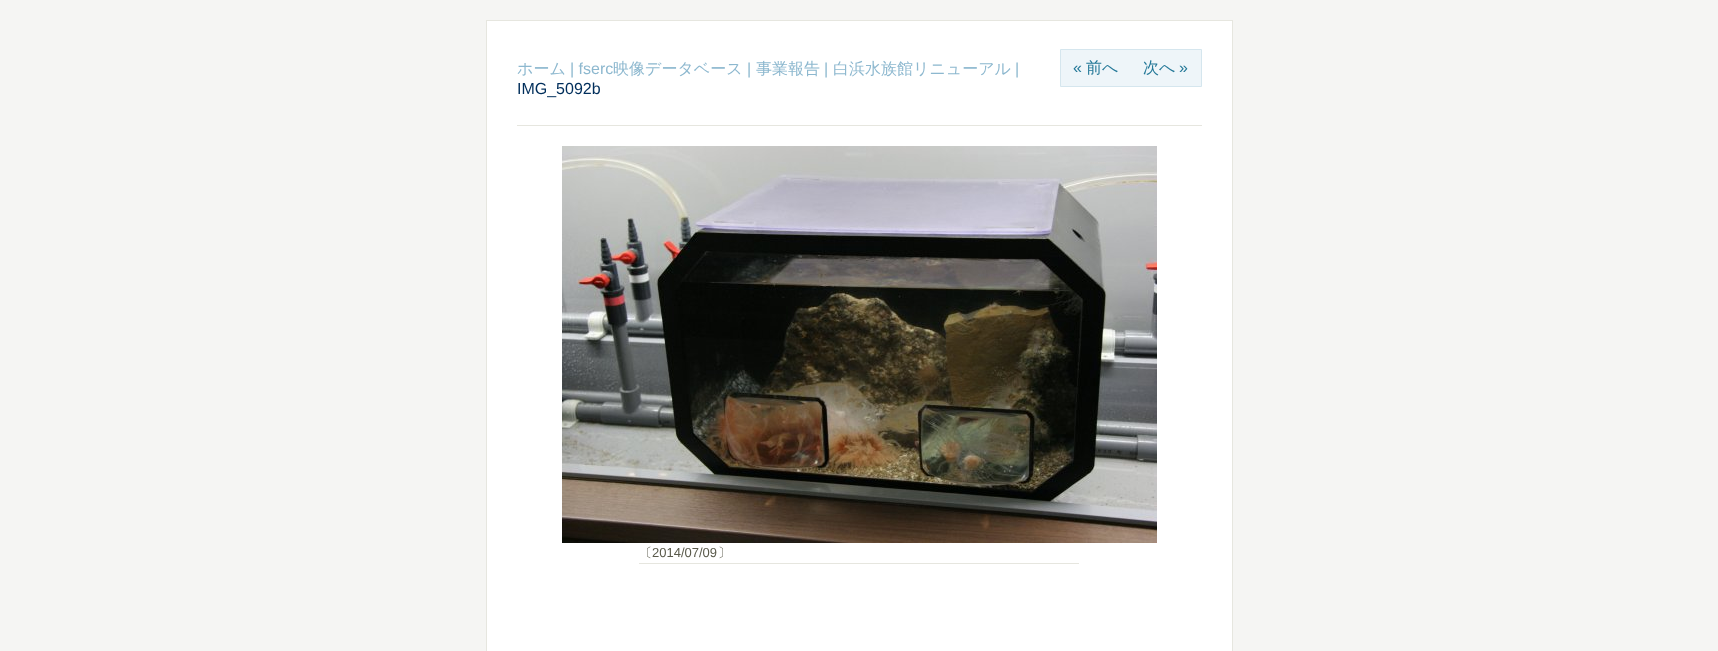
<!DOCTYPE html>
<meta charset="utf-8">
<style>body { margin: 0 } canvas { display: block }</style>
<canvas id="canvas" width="1718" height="651"></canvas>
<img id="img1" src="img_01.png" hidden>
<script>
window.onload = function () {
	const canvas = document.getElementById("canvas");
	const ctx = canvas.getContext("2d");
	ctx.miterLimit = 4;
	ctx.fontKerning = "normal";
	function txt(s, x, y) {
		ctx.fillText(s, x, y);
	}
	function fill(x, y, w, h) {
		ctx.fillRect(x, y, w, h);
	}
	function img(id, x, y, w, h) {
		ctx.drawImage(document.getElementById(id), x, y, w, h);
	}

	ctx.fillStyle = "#F5F5F3";
	fill(0, 0, 1718, 651);
	ctx.fillStyle = "#FFFFFF";
	fill(487, 21, 745, 630);
	ctx.fillStyle = "#E6E6DF";
	fill(486, 20, 747, 1);
	fill(1232, 20, 1, 631);
	fill(486, 20, 1, 631);
	fill(517, 125, 685, 1);
	ctx.fillStyle = "#EEF5F9";
	ctx.beginPath();
	ctx.rect(1060.5, 49.5, 141, 37);
	ctx.fill();
	ctx.strokeStyle = "#D5E6EE";
	ctx.stroke();
	img("img1", 562, 146, 595, 397);
	ctx.fillStyle = "#E6E6DF";
	fill(639, 563, 440, 1);
	ctx.font = "500 16px WenQuanYi Zen Hei";
	ctx.fillStyle = "#8DB8CF";
	txt("ホーム", 517, 74);
	ctx.font = "16px Liberation Sans";
	txt("| fserc", 570, 74);
	ctx.font = "500 16px WenQuanYi Zen Hei";
	txt("映像データベース", 613, 74);
	ctx.font = "16px Liberation Sans";
	txt("|", 747, 74);
	ctx.font = "500 16px WenQuanYi Zen Hei";
	txt("事業報告", 756, 74);
	ctx.font = "16px Liberation Sans";
	txt("|", 824, 74);
	ctx.font = "500 16px WenQuanYi Zen Hei";
	txt("白浜水族館リニューアル", 833, 74);
	ctx.font = "16px Liberation Sans";
	txt("|", 1015, 74);
	ctx.fillStyle = "#002E5B";
	txt("IMG_5092b", 517, 94);
	ctx.fillStyle = "#237898";
	txt("«", 1073, 73);
	ctx.font = "500 16px WenQuanYi Zen Hei";
	txt("前へ", 1086, 73);
	txt("次へ", 1143, 73);
	ctx.font = "16px Liberation Sans";
	txt("»", 1179, 73);
	ctx.font = "500 13px WenQuanYi Zen Hei";
	ctx.fillStyle = "#5A5A4B";
	txt("〔", 639, 557);
	ctx.font = "13px Liberation Sans";
	txt("2014/07/09", 652, 557);
	ctx.font = "500 13px WenQuanYi Zen Hei";
	txt("〕", 718, 557);
};
</script>
